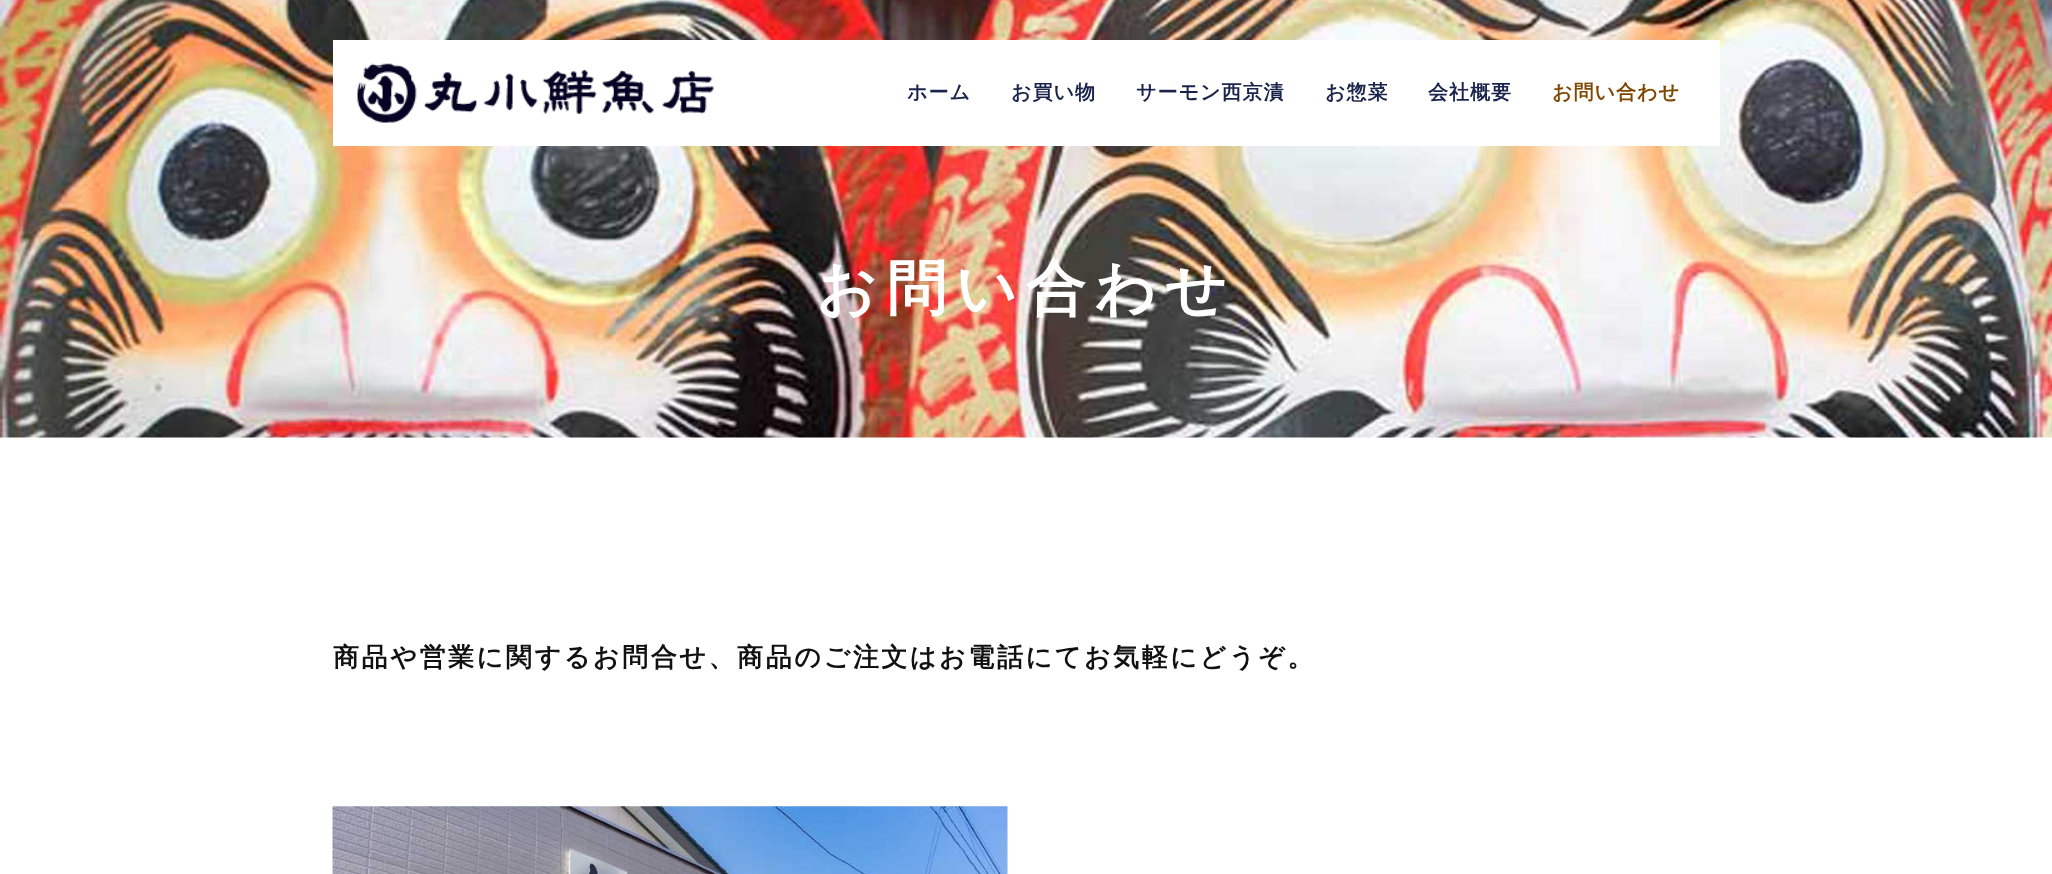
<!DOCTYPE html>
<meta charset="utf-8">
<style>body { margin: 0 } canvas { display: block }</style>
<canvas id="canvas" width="2052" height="874"></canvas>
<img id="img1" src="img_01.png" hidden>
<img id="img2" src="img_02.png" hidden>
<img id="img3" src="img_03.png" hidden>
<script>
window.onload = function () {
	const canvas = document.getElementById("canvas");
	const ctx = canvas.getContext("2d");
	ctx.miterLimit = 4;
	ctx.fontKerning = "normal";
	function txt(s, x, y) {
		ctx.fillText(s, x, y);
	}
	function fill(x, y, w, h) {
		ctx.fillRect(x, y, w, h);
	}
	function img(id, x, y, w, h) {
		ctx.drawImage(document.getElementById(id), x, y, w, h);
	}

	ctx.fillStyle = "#FFFFFF";
	fill(0, 0, 2052, 874);
	img("img1", 0, 0, 2052, 438);
	fill(333, 40, 1387, 106);
	img("img2", 357, 63, 357, 60);
	img("img3", 332, 806, 676, 68);
	ctx.letterSpacing = "1px";
	ctx.font = "bold 20px WenQuanYi Zen Hei";
	ctx.fillStyle = "#19234B";
	txt("ホーム", 907, 99);
	txt("お買い物", 1011, 99);
	txt("サーモン西京漬", 1136, 99);
	txt("お惣菜", 1325, 99);
	txt("会社概要", 1428, 99);
	ctx.fillStyle = "#7F4700";
	txt("お問い合わせ", 1552, 99);
	ctx.letterSpacing = "9px";
	ctx.font = "bold 60px WenQuanYi Zen Hei";
	ctx.fillStyle = "#FFFFFF";
	txt("お問い合わせ", 816, 309);
	ctx.letterSpacing = "2.6px";
	ctx.font = "bold 26px WenQuanYi Zen Hei";
	ctx.fillStyle = "#111111";
	txt("商品や営業に関するお問合せ、商品のご注文はお電話にてお気軽にどうぞ。", 333, 666);
};
</script>
